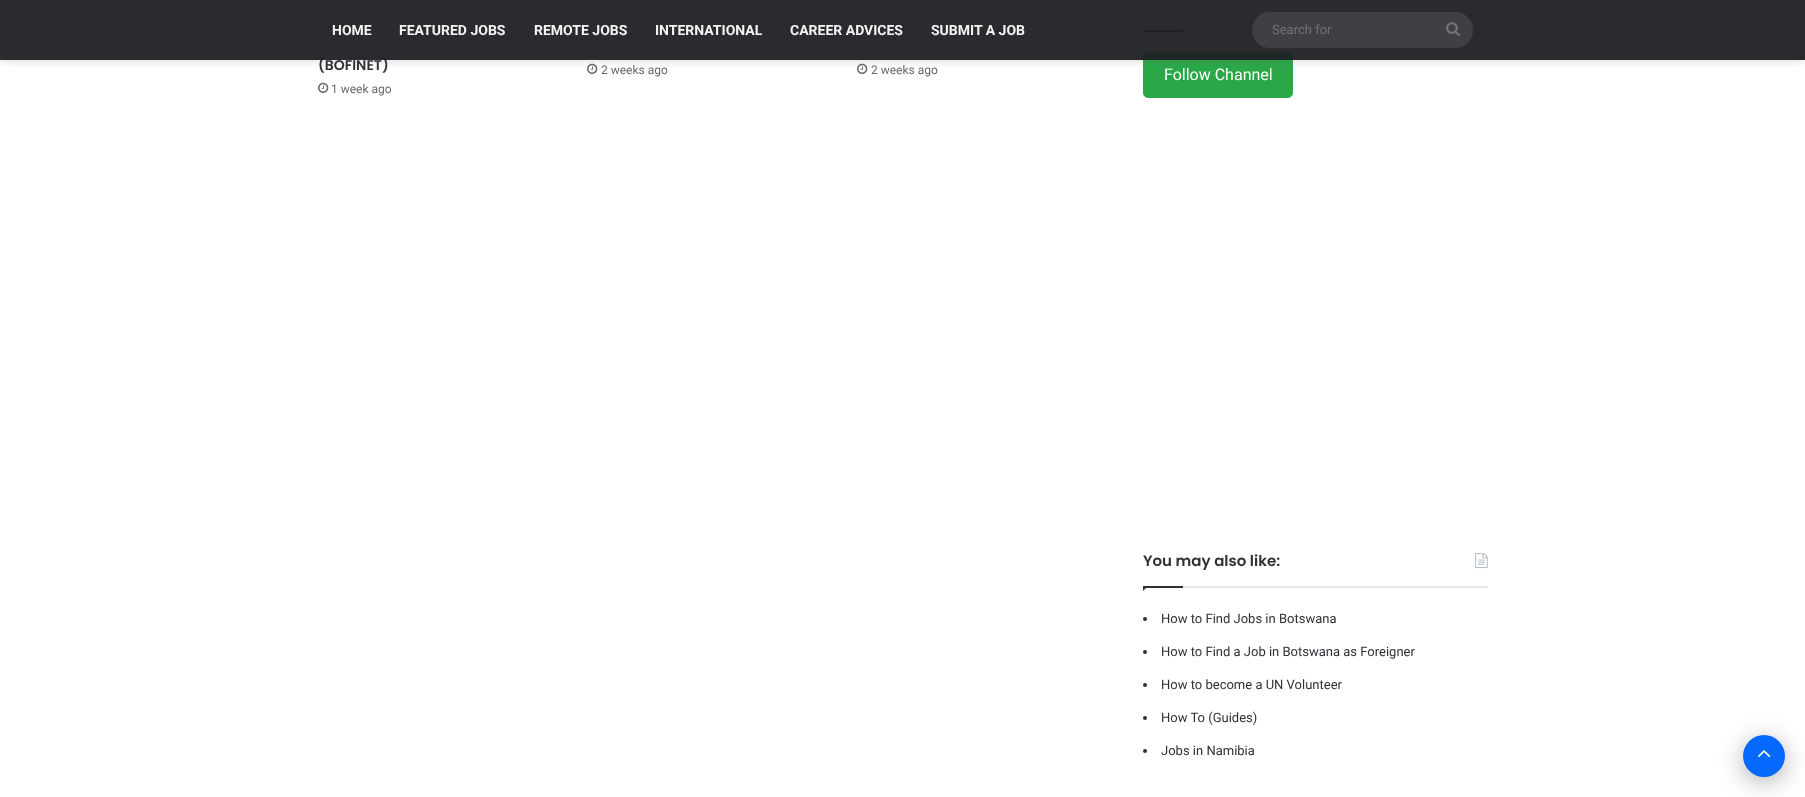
<!DOCTYPE html>
<meta charset="utf-8">
<style>body { margin: 0 } canvas { display: block }</style>
<canvas id="canvas" width="1805" height="797"></canvas>
<img id="img1" src="img_02.png" hidden>
<img id="img2" src="img_03.png" hidden>
<img id="img3" src="img_04.png" hidden>
<img id="img4" src="img_05.png" hidden>
<img id="img5" src="img_01.png" hidden>
<script>
window.onload = function () {
	const canvas = document.getElementById("canvas");
	const ctx = canvas.getContext("2d");
	ctx.miterLimit = 4;
	ctx.fontKerning = "normal";
	function txt(s, x, y) {
		ctx.fillText(s, x, y);
	}
	function fill(x, y, w, h) {
		ctx.fillRect(x, y, w, h);
	}
	function round(x, y, w, h, r) {
		ctx.beginPath();
		ctx.roundRect(x, y, w, h, r);
		ctx.fill();
	}
	function img(id, x, y, w, h) {
		ctx.drawImage(document.getElementById(id), x, y, w, h);
	}

	ctx.fillStyle = "#FFFFFF";
	fill(0, 0, 1805, 797);
	img("img1", 587, 63, 11, 11);
	img("img1", 857, 63, 11, 11);
	ctx.fillStyle = "#E6E6E6";
	fill(1183, 30, 305, 2);
	img("img2", 1475, 0, 13, 13);
	ctx.fillStyle = "#2E3136";
	ctx.beginPath();
	ctx.moveTo(1143, 30);
	ctx.lineTo(1148, 30);
	ctx.lineTo(1143, 35);
	ctx.closePath();
	ctx.fill();
	fill(1143, 30, 40, 2);
	ctx.fillStyle = "#2AA847";
	ctx.beginPath();
	ctx.roundRect(1143.5, 52.5, 149, 45, 4.5);
	ctx.fill();
	ctx.strokeStyle = "#2AA847";
	ctx.stroke();
	ctx.save();
	ctx.beginPath();
	ctx.rect(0, 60, 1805, 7);
	ctx.clip();
	ctx.fillStyle = "rgba(99, 99, 99, 0.2)";
	ctx.filter = "blur(4px)";
	ctx.beginPath();
	ctx.rect(0, 2, 1805, 60);
	ctx.fill();
	ctx.filter = "none";
	ctx.restore();
	img("img1", 318, 82, 11, 11);
	ctx.fillStyle = "#E6E6E6";
	fill(1183, 586, 305, 2);
	img("img3", 1475, 553, 13, 16);
	ctx.fillStyle = "#2E3136";
	ctx.beginPath();
	ctx.moveTo(1143, 586);
	ctx.lineTo(1148, 586);
	ctx.lineTo(1143, 591);
	ctx.closePath();
	ctx.fill();
	fill(1143, 586, 40, 2);
	ctx.beginPath();
	ctx.arc(1145, 619, 2, 0, Math.PI * 2);
	ctx.fill();
	ctx.beginPath();
	ctx.arc(1145, 652, 2, 0, Math.PI * 2);
	ctx.fill();
	ctx.beginPath();
	ctx.arc(1145, 685, 2, 0, Math.PI * 2);
	ctx.fill();
	ctx.beginPath();
	ctx.arc(1145, 718, 2, 0, Math.PI * 2);
	ctx.fill();
	ctx.beginPath();
	ctx.arc(1145, 751, 2, 0, Math.PI * 2);
	ctx.fill();
	ctx.fillStyle = "rgba(0, 0, 0, 0.3)";
	ctx.filter = "blur(12.5px)";
	ctx.beginPath();
	ctx.roundRect(1743, 740, 42, 42, 21);
	ctx.fill();
	ctx.filter = "none";
	ctx.fillStyle = "#0669FF";
	ctx.beginPath();
	ctx.arc(1764, 756, 21, 0, Math.PI * 2);
	ctx.fill();
	img("img4", 1758, 750, 13, 8);
	ctx.font = "600 14px Poppins";
	ctx.fillStyle = "#2E3136";
	txt("(BOFINET)", 318, 70);
	ctx.fillStyle = "rgba(31, 32, 36, 0.95)";
	fill(0, 0, 1805, 60);
	ctx.fillStyle = "rgba(255, 255, 255, 0.1)";
	round(1252, 12, 221, 36, 18);
	img("img5", 1446, 22, 14, 14);
	ctx.font = "13px Roboto";
	ctx.fillStyle = "#717171";
	txt("Search for", 1272, 34);
	ctx.font = "bold 14px Roboto";
	ctx.fillStyle = "#F4F4F4";
	txt("SUBMIT A JOB", 931, 35);
	txt("CAREER ADVICES", 790, 35);
	txt("INTERNATIONAL", 655, 35);
	txt("REMOTE JOBS", 534, 35);
	txt("FEATURED JOBS", 399, 35);
	txt("HOME", 332, 35);
	ctx.font = "12px Roboto";
	ctx.fillStyle = "#686868";
	txt("1 week ago", 331, 93);
	txt("2 weeks ago", 601, 74);
	txt("2 weeks ago", 871, 74);
	ctx.font = "16px Roboto";
	ctx.fillStyle = "#FFFFFF";
	txt("Follow Channel", 1164, 80);
	ctx.font = "600 15px Poppins";
	ctx.fillStyle = "#2E3136";
	txt("You may also like:", 1143, 566);
	ctx.font = "13px Roboto";
	txt("How to Find Jobs in Botswana", 1161, 623);
	txt("How to Find a Job in Botswana as Foreigner", 1161, 656);
	txt("How to become a UN Volunteer", 1161, 689);
	txt("How To (Guides)", 1161, 722);
	txt("Jobs in Namibia", 1161, 755);
};
</script>
